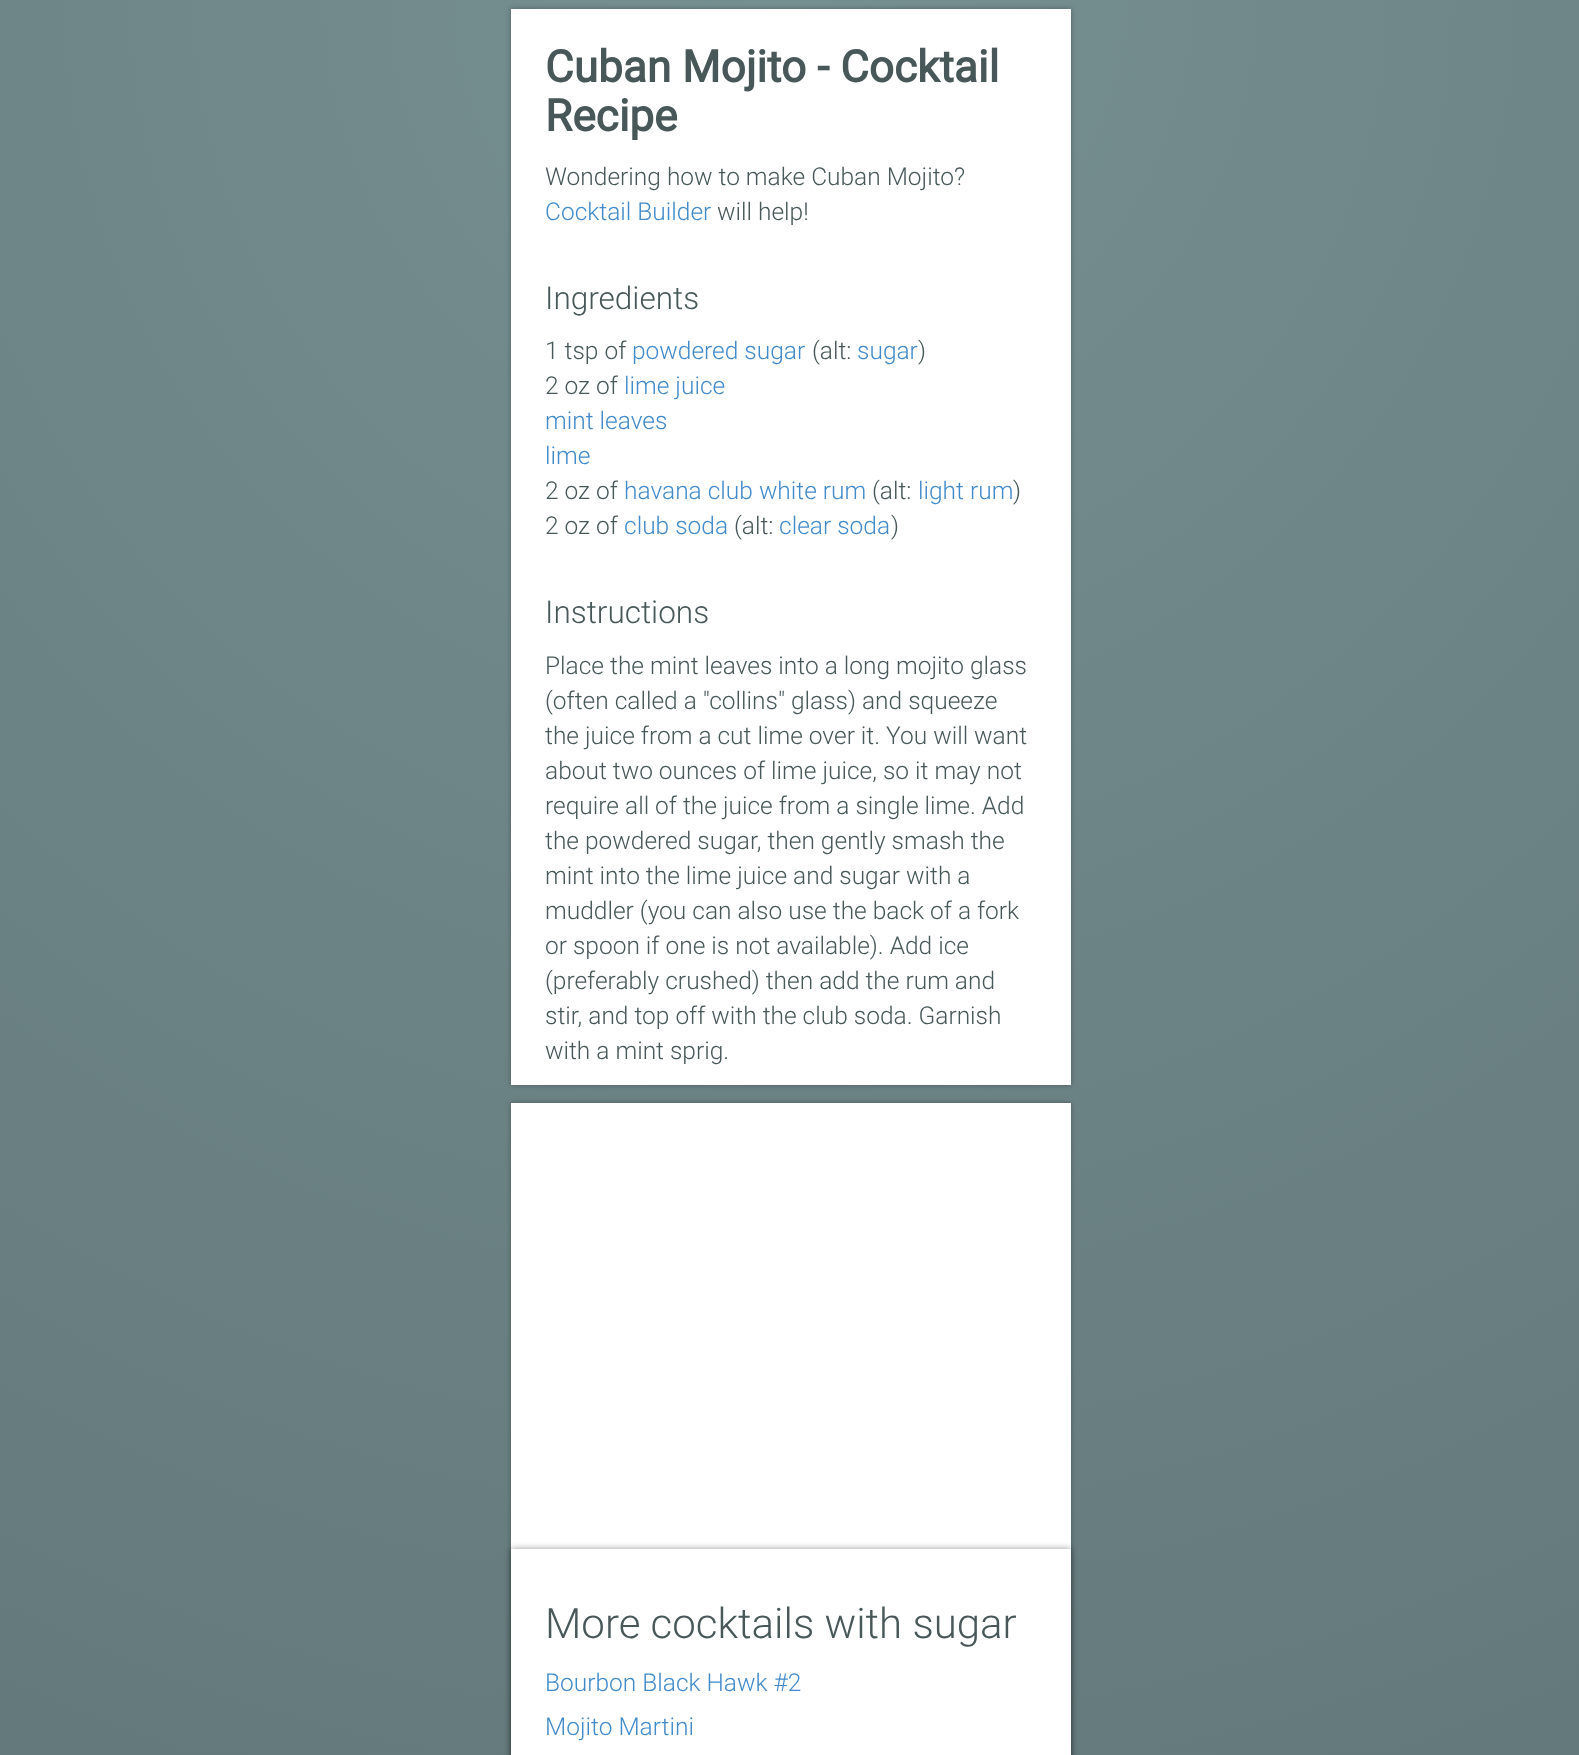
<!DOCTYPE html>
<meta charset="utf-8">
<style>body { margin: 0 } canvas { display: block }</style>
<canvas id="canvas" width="1579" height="1755"></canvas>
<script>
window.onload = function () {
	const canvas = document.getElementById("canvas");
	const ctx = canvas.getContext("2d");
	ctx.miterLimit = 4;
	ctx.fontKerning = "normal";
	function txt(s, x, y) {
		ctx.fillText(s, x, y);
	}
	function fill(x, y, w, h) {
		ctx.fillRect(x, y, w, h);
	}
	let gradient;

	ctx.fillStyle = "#FFFFFF";
	fill(0, 0, 1579, 1755);
	gradient = ctx.createRadialGradient(790, 0, 0, 790, 0, 4767);
	gradient.addColorStop(0, "#768F91");
	gradient.addColorStop(1, "#485859");
	ctx.fillStyle = gradient;
	fill(0, 0, 1579, 1755);
	ctx.fillStyle = "rgba(0, 0, 0, 0.3)";
	ctx.filter = "blur(2.5px)";
	ctx.beginPath();
	ctx.rect(511, 9, 560, 1076);
	ctx.fill();
	ctx.filter = "none";
	ctx.fillStyle = "#FFFFFF";
	fill(511, 9, 560, 1076);
	ctx.fillStyle = "rgba(0, 0, 0, 0.3)";
	ctx.filter = "blur(2.5px)";
	ctx.beginPath();
	ctx.rect(511, 1103, 560, 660);
	ctx.fill();
	ctx.filter = "none";
	ctx.fillStyle = "#FFFFFF";
	fill(511, 1103, 560, 652);
	ctx.save();
	ctx.beginPath();
	ctx.moveTo(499, 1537);
	ctx.lineTo(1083, 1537);
	ctx.lineTo(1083, 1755);
	ctx.lineTo(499, 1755);
	ctx.closePath();
	ctx.moveTo(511, 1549);
	ctx.lineTo(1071, 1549);
	ctx.lineTo(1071, 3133);
	ctx.lineTo(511, 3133);
	ctx.closePath();
	ctx.clip("evenodd");
	ctx.fillStyle = "rgba(0, 0, 0, 0.4)";
	ctx.filter = "blur(3.5px)";
	ctx.beginPath();
	ctx.rect(511, 1549, 560, 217);
	ctx.fill();
	ctx.filter = "none";
	ctx.restore();
	ctx.font = "bold 44.1px Roboto";
	ctx.fillStyle = "#485859";
	txt("Cuban Mojito - Cocktail", 545, 82);
	txt("Recipe", 545, 131);
	ctx.font = "300 24.5px Roboto";
	txt("Wondering how to make Cuban Mojito?", 545, 185);
	ctx.fillStyle = "#428BCA";
	txt("Cocktail Builder", 545, 220);
	ctx.fillStyle = "#485859";
	txt("will help!", 717, 220);
	ctx.font = "300 31.5px Roboto";
	txt("Ingredients", 545, 309);
	ctx.font = "300 24.5px Roboto";
	txt("1 tsp of", 545, 359);
	ctx.fillStyle = "#428BCA";
	txt("powdered sugar", 632, 359);
	ctx.fillStyle = "#485859";
	txt("(alt:", 812, 359);
	ctx.fillStyle = "#428BCA";
	txt("sugar", 857, 359);
	ctx.fillStyle = "#485859";
	txt(")", 918, 359);
	txt("2 oz of", 545, 394);
	ctx.fillStyle = "#428BCA";
	txt("lime juice", 624, 394);
	txt("mint leaves", 545, 429);
	txt("lime", 545, 464);
	ctx.fillStyle = "#485859";
	txt("2 oz of", 545, 499);
	ctx.fillStyle = "#428BCA";
	txt("havana club white rum", 624, 499);
	ctx.fillStyle = "#485859";
	txt("(alt:", 872, 499);
	ctx.fillStyle = "#428BCA";
	txt("light rum", 918, 499);
	ctx.fillStyle = "#485859";
	txt(")", 1013, 499);
	txt("2 oz of", 545, 534);
	ctx.fillStyle = "#428BCA";
	txt("club soda", 624, 534);
	ctx.fillStyle = "#485859";
	txt("(alt:", 734, 534);
	ctx.fillStyle = "#428BCA";
	txt("clear soda", 779, 534);
	ctx.fillStyle = "#485859";
	txt(")", 891, 534);
	ctx.font = "300 31.5px Roboto";
	txt("Instructions", 545, 623);
	ctx.font = "300 24.5px Roboto";
	txt("Place the mint leaves into a long mojito glass", 545, 674);
	txt("(often called a \"collins\" glass) and squeeze", 545, 709);
	txt("the juice from a cut lime over it. You will want", 545, 744);
	txt("about two ounces of lime juice, so it may not", 545, 779);
	txt("require all of the juice from a single lime. Add", 545, 814);
	txt("the powdered sugar, then gently smash the", 545, 849);
	txt("mint into the lime juice and sugar with a", 545, 884);
	txt("muddler (you can also use the back of a fork", 545, 919);
	txt("or spoon if one is not available). Add ice", 545, 954);
	txt("(preferably crushed) then add the rum and", 545, 989);
	txt("stir, and top off with the club soda. Garnish", 545, 1024);
	txt("with a mint sprig.", 545, 1059);
	ctx.font = "300 42px Roboto";
	txt("More cocktails with sugar", 545, 1638);
	ctx.font = "300 24.5px Roboto";
	ctx.fillStyle = "#428BCA";
	txt("Bourbon Black Hawk #2", 545, 1691);
	txt("Mojito Martini", 545, 1735);
};
</script>
